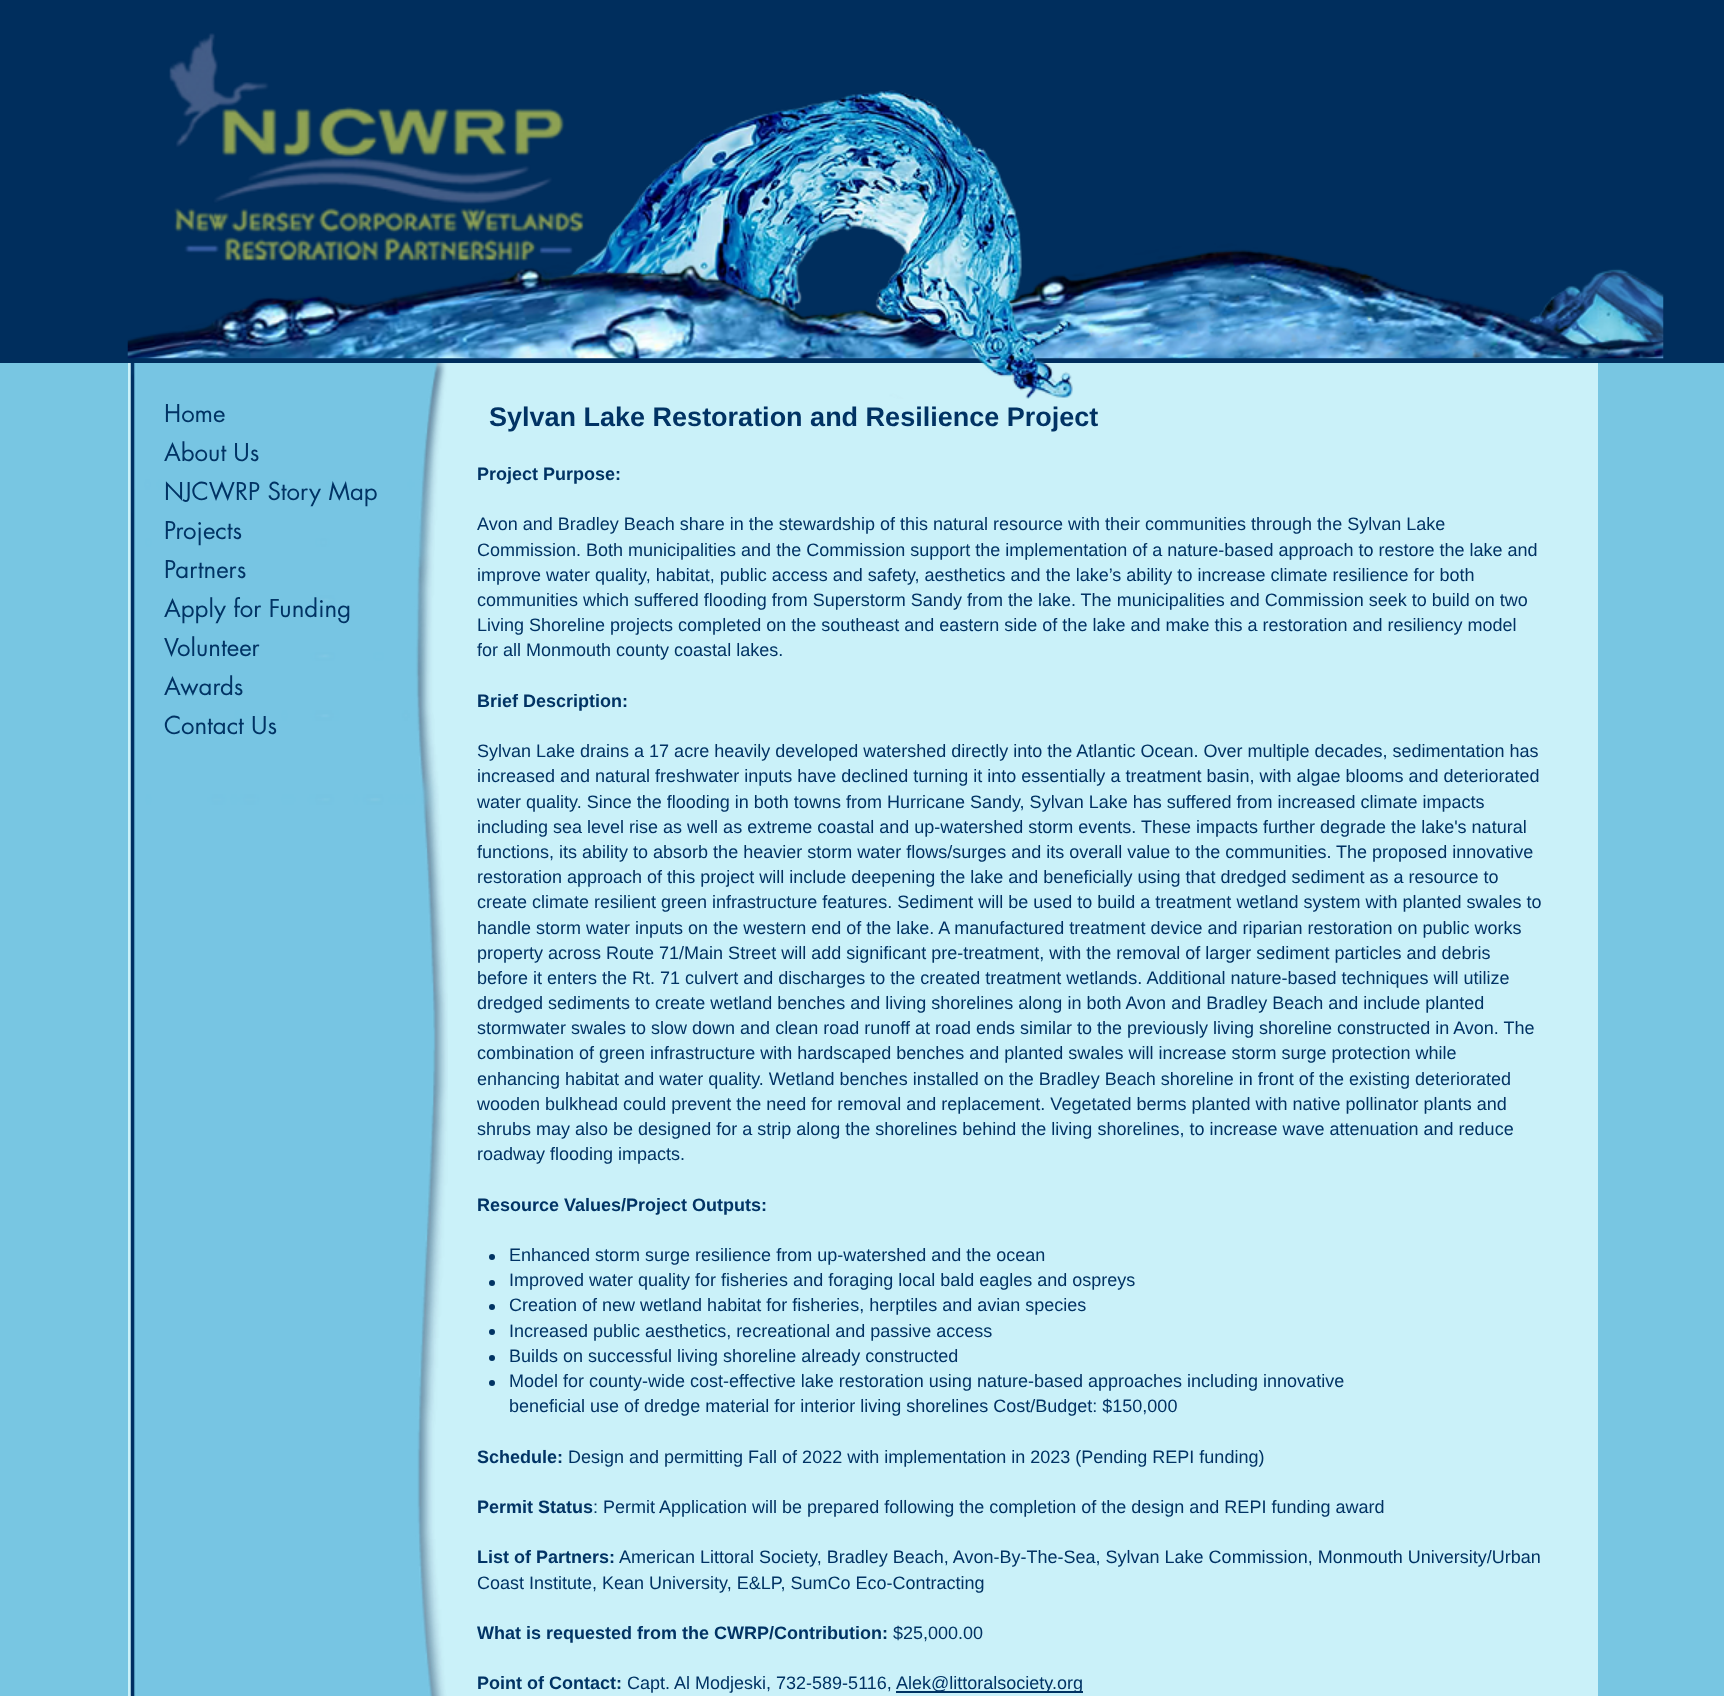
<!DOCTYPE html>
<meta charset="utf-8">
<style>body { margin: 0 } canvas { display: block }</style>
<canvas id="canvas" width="1724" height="1696"></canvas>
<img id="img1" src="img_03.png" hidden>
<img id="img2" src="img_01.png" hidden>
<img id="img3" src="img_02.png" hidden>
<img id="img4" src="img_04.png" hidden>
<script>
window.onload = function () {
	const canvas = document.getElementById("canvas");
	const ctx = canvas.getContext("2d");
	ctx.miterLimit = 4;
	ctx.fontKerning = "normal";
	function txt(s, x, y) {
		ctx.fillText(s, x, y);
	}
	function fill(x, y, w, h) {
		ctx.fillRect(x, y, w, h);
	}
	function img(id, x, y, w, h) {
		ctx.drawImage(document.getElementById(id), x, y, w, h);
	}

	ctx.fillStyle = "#78C6E2";
	fill(0, 0, 1724, 1696);
	ctx.fillStyle = "#002E5D";
	fill(0, 0, 1724, 363);
	img("img1", 127, 95, 1537, 264);
	img("img2", 169, 33, 415, 228);
	ctx.fillStyle = "#CAF1F9";
	fill(128, 363, 1470, 1333);
	img("img3", 612, 90, 461, 309);
	img("img4", 130, 363, 318, 1333);
	ctx.fillStyle = "#003363";
	ctx.beginPath();
	ctx.arc(492, 1257, 3, 0, Math.PI * 2);
	ctx.fill();
	ctx.beginPath();
	ctx.arc(492, 1283, 3, 0, Math.PI * 2);
	ctx.fill();
	ctx.beginPath();
	ctx.arc(492, 1307, 3, 0, Math.PI * 2);
	ctx.fill();
	ctx.beginPath();
	ctx.arc(492, 1332, 3, 0, Math.PI * 2);
	ctx.fill();
	ctx.beginPath();
	ctx.arc(492, 1358, 3, 0, Math.PI * 2);
	ctx.fill();
	ctx.beginPath();
	ctx.arc(492, 1383, 3, 0, Math.PI * 2);
	ctx.fill();
	fill(896, 1691, 187, 2);
	ctx.font = "24px futura";
	ctx.fillStyle = "#013364";
	txt("Home", 164, 422);
	txt("About Us", 164, 461);
	txt("NJCWRP Story Map", 164, 500);
	txt("Projects", 164, 539);
	txt("Partners", 164, 578);
	txt("Apply for Funding", 164, 617);
	txt("Volunteer", 164, 656);
	txt("Awards", 164, 695);
	txt("Contact Us", 164, 734);
	ctx.font = "bold 27px Liberation Sans";
	txt("Sylvan Lake Restoration and Resilience Project", 489, 426);
	ctx.font = "bold 18px Liberation Sans";
	txt("Project Purpose:", 477, 480);
	ctx.font = "18px Liberation Sans";
	txt("Avon and Bradley Beach share in the stewardship of this natural resource with their communities through the Sylvan Lake", 477, 530);
	txt("Commission. Both municipalities and the Commission support the implementation of a nature-based approach to restore the lake and", 477, 556);
	txt("improve water quality, habitat, public access and safety, aesthetics and the lake’s ability to increase climate resilience for both", 477, 581);
	txt("communities which suffered flooding from Superstorm Sandy from the lake. The municipalities and Commission seek to build on two", 477, 606);
	txt("Living Shoreline projects completed on the southeast and eastern side of the lake and make this a restoration and resiliency model", 477, 631);
	txt("for all Monmouth county coastal lakes.", 477, 656);
	ctx.font = "bold 18px Liberation Sans";
	txt("Brief Description:", 477, 707);
	ctx.font = "18px Liberation Sans";
	txt("Sylvan Lake drains a 17 acre heavily developed watershed directly into the Atlantic Ocean. Over multiple decades, sedimentation has", 477, 757);
	txt("increased and natural freshwater inputs have declined turning it into essentially a treatment basin, with algae blooms and deteriorated", 477, 782);
	txt("water quality. Since the flooding in both towns from Hurricane Sandy, Sylvan Lake has suffered from increased climate impacts", 477, 808);
	txt("including sea level rise as well as extreme coastal and up-watershed storm events. These impacts further degrade the lake's natural", 477, 833);
	txt("functions, its ability to absorb the heavier storm water flows/surges and its overall value to the communities. The proposed innovative", 477, 858);
	txt("restoration approach of this project will include deepening the lake and beneficially using that dredged sediment as a resource to", 477, 883);
	txt("create climate resilient green infrastructure features. Sediment will be used to build a treatment wetland system with planted swales to", 477, 908);
	txt("handle storm water inputs on the western end of the lake. A manufactured treatment device and riparian restoration on public works", 477, 934);
	txt("property across Route 71/Main Street will add significant pre-treatment, with the removal of larger sediment particles and debris", 477, 959);
	txt("before it enters the Rt. 71 culvert and discharges to the created treatment wetlands. Additional nature-based techniques will utilize", 477, 984);
	txt("dredged sediments to create wetland benches and living shorelines along in both Avon and Bradley Beach and include planted", 477, 1009);
	txt("stormwater swales to slow down and clean road runoff at road ends similar to the previously living shoreline constructed in Avon. The", 477, 1034);
	txt("combination of green infrastructure with hardscaped benches and planted swales will increase storm surge protection while", 477, 1059);
	txt("enhancing habitat and water quality. Wetland benches installed on the Bradley Beach shoreline in front of the existing deteriorated", 477, 1085);
	txt("wooden bulkhead could prevent the need for removal and replacement. Vegetated berms planted with native pollinator plants and", 477, 1110);
	txt("shrubs may also be designed for a strip along the shorelines behind the living shorelines, to increase wave attenuation and reduce", 477, 1135);
	txt("roadway flooding impacts.", 477, 1160);
	ctx.font = "bold 18px Liberation Sans";
	txt("Resource Values/Project Outputs:", 477, 1211);
	ctx.font = "18px Liberation Sans";
	txt("Enhanced storm surge resilience from up-watershed and the ocean", 509, 1261);
	txt("Improved water quality for fisheries and foraging local bald eagles and ospreys", 509, 1286);
	txt("Creation of new wetland habitat for fisheries, herptiles and avian species", 509, 1311);
	txt("Increased public aesthetics, recreational and passive access", 509, 1337);
	txt("Builds on successful living shoreline already constructed", 509, 1362);
	txt("Model for county-wide cost-effective lake restoration using nature-based approaches including innovative", 509, 1387);
	txt("beneficial use of dredge material for interior living shorelines Cost/Budget: $150,000", 509, 1412);
	ctx.font = "bold 18px Liberation Sans";
	txt("Schedule:", 477, 1463);
	ctx.font = "18px Liberation Sans";
	txt("Design and permitting Fall of 2022 with implementation in 2023 (Pending REPI funding)", 568, 1463);
	ctx.font = "bold 18px Liberation Sans";
	txt("Permit Status", 477, 1513);
	ctx.font = "18px Liberation Sans";
	txt(": Permit Application will be prepared following the completion of the design and REPI funding award", 593, 1513);
	ctx.font = "bold 18px Liberation Sans";
	txt("List of Partners:", 477, 1563);
	ctx.font = "18px Liberation Sans";
	txt("American Littoral Society, Bradley Beach, Avon-By-The-Sea, Sylvan Lake Commission, Monmouth University/Urban", 619, 1563);
	txt("Coast Institute, Kean University, E&LP, SumCo Eco-Contracting", 477, 1589);
	ctx.font = "bold 18px Liberation Sans";
	txt("What is requested from the CWRP/Contribution:", 477, 1639);
	ctx.font = "18px Liberation Sans";
	txt("$25,000.00", 893, 1639);
	ctx.font = "bold 18px Liberation Sans";
	txt("Point of Contact:", 477, 1689);
	ctx.font = "18px Liberation Sans";
	txt("Capt. Al Modjeski, 732-589-5116,", 627, 1689);
	txt("Alek@littoralsociety.org", 896, 1689);
};
</script>
